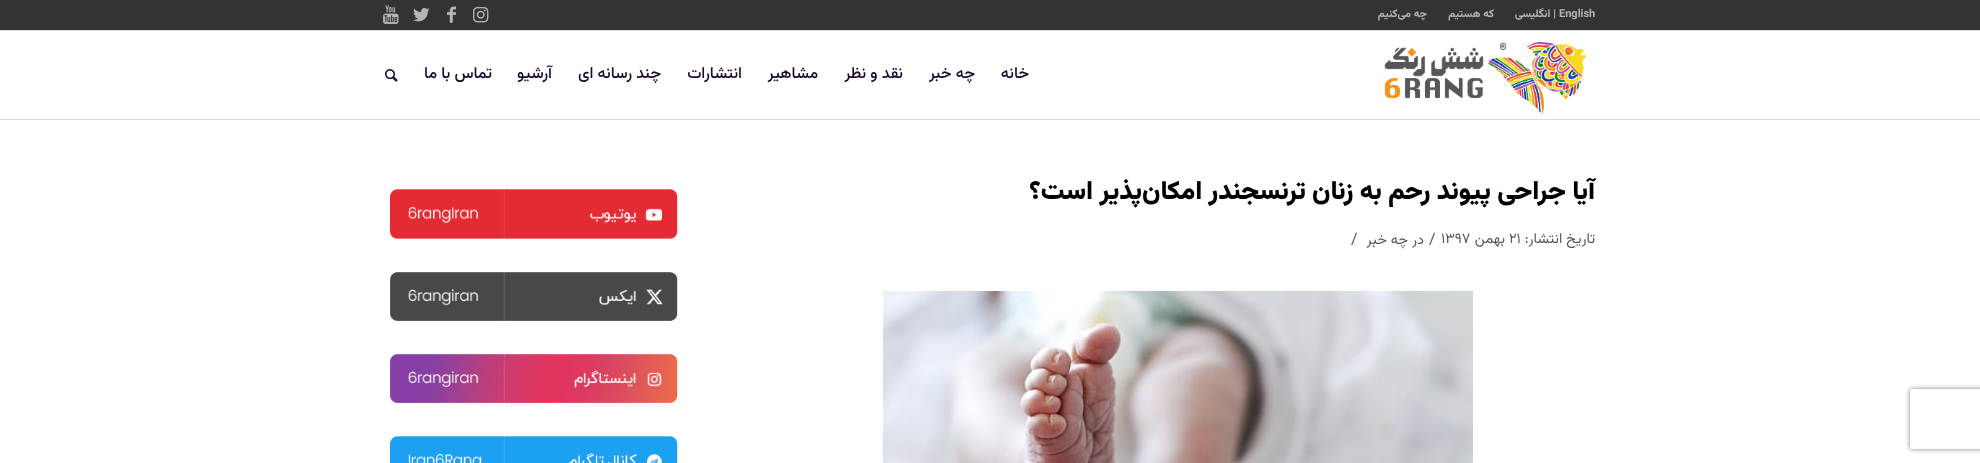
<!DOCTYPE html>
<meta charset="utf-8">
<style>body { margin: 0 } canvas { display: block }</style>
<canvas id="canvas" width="1980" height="463"></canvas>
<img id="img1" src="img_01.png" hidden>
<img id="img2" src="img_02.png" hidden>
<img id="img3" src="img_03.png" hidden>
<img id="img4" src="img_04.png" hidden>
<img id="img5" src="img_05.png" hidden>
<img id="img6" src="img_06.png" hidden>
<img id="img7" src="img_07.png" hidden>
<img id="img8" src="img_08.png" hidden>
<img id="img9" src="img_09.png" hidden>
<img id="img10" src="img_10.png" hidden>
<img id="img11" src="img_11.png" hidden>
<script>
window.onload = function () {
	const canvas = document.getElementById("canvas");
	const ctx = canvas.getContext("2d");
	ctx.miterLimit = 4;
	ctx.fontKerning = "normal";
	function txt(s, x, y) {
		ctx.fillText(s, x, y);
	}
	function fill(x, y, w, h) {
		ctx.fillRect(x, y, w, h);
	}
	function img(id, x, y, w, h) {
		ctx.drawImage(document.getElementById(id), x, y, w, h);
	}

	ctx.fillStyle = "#FFFFFF";
	fill(0, 0, 1980, 463);
	ctx.fillStyle = "#333333";
	fill(0, 0, 1980, 30);
	ctx.fillStyle = "#DADCE0";
	fill(0, 30, 1980, 1);
	img("img1", 473, 7, 16, 16);
	img("img2", 447, 6, 9, 17);
	img("img3", 413, 8, 17, 14);
	img("img4", 383, 5, 16, 19);
	fill(0, 119, 1980, 1);
	img("img5", 1384, 41, 202, 73);
	img("img6", 385, 69, 13, 13);
	img("img7", 883, 291, 590, 172);
	img("img8", 390, 189, 288, 50);
	img("img9", 390, 272, 288, 49);
	img("img10", 390, 354, 288, 49);
	img("img11", 390, 436, 288, 27);
	ctx.save();
	ctx.beginPath();
	ctx.moveTo(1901, 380);
	ctx.lineTo(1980, 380);
	ctx.lineTo(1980, 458);
	ctx.lineTo(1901, 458);
	ctx.closePath();
	ctx.moveTo(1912, 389);
	ctx.lineTo(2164, 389);
	ctx.bezierCurveTo(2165, 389, 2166, 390, 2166, 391);
	ctx.lineTo(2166, 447);
	ctx.bezierCurveTo(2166, 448, 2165, 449, 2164, 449);
	ctx.lineTo(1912, 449);
	ctx.bezierCurveTo(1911, 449, 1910, 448, 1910, 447);
	ctx.lineTo(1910, 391);
	ctx.bezierCurveTo(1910, 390, 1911, 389, 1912, 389);
	ctx.closePath();
	ctx.clip("evenodd");
	ctx.fillStyle = "#808080";
	ctx.filter = "blur(2.5px)";
	ctx.beginPath();
	ctx.roundRect(1910, 389, 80, 60, 2);
	ctx.fill();
	ctx.filter = "none";
	ctx.restore();
	ctx.font = "bold 11px Vazirmatn";
	ctx.fillStyle = "#B5B5B5";
	txt("English", 1559, 17);
	ctx.direction = "rtl";
	txt("| انگلیسی", 1556, 17);
	txt("که هستیم", 1494, 17);
	txt("چه می‌کنیم", 1427, 17);
	ctx.font = "500 16px Vazirmatn";
	ctx.fillStyle = "#1C0A2E";
	txt("خانه", 1029, 78);
	txt("چه خبر", 975, 78);
	txt("نقد و نظر", 903, 78);
	txt("مشاهیر", 818, 78);
	txt("انتشارات", 742, 78);
	txt("چند رسانه ای", 661, 78);
	txt("آرشیو", 552, 78);
	txt("تماس با ما", 492, 78);
	ctx.font = "900 26px Vazirmatn";
	ctx.fillStyle = "#000000";
	txt("آیا جراحی پیوند رحم به زنان ترنسجندر امکان‌پذیر است؟", 1595, 199);
	ctx.font = "14.5px Vazirmatn";
	ctx.fillStyle = "#575757";
	txt("تاریخ انتشار:", 1595, 243);
	ctx.direction = "ltr";
	txt("۲۱", 1509, 243);
	ctx.direction = "rtl";
	txt("بهمن", 1505, 243);
	ctx.direction = "ltr";
	txt("۱۳۹۷", 1441, 243);
	ctx.font = "16px Vazirmatn";
	txt("/", 1429, 244);
	ctx.direction = "rtl";
	ctx.font = "14.5px Vazirmatn";
	txt("در", 1424, 244);
	txt("چه خبر", 1408, 244);
	ctx.direction = "ltr";
	ctx.font = "16px Vazirmatn";
	txt("/", 1351, 244);
};
</script>
